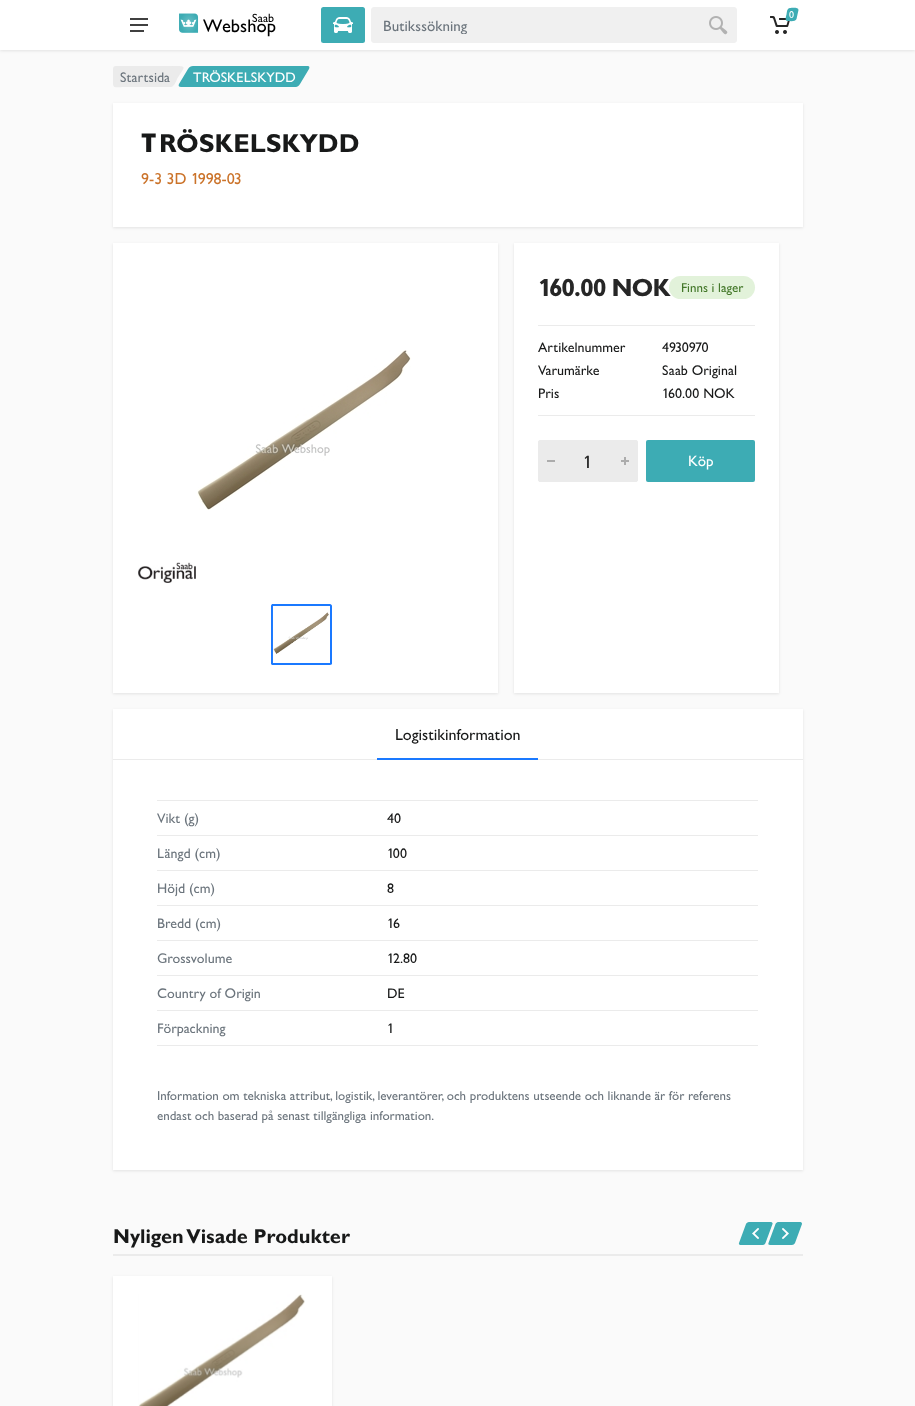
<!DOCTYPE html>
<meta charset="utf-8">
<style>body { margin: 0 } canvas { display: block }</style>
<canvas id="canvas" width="915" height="1406"></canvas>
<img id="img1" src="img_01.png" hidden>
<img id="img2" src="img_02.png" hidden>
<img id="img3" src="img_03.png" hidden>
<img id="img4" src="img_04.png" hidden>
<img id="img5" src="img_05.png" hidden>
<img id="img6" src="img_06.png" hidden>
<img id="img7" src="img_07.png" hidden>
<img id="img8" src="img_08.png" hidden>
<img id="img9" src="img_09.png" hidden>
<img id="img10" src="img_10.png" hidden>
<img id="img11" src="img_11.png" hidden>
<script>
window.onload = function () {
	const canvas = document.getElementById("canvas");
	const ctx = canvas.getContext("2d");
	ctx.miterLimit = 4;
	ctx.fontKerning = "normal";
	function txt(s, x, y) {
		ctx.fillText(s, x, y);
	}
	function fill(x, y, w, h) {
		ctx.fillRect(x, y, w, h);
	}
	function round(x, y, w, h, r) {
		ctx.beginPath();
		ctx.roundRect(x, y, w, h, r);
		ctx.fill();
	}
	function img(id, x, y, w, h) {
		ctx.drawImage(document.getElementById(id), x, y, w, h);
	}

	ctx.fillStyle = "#FAFAFA";
	fill(0, 0, 915, 1406);
	ctx.fillStyle = "rgba(0, 0, 0, 0.09)";
	ctx.filter = "blur(1.5px)";
	ctx.beginPath();
	ctx.rect(0, 1, 915, 50);
	ctx.fill();
	ctx.filter = "none";
	ctx.fillStyle = "#FFFFFF";
	fill(0, 0, 915, 50);
	img("img1", 130, 18, 18, 14);
	img("img2", 179, 13, 20, 20);
	ctx.fillStyle = "#3DACB4";
	round(321, 7, 44, 36, 2.5);
	img("img3", 333, 17, 20, 16);
	ctx.fillStyle = "#F0F0F0";
	ctx.beginPath();
	ctx.roundRect(371.5, 7.5, 365, 35, 2.5);
	ctx.fill();
	ctx.strokeStyle = "#F0F0F0";
	ctx.stroke();
	img("img4", 709, 16, 19, 19);
	img("img5", 770, 16, 20, 18);
	ctx.fillStyle = "#3DACB4";
	ctx.beginPath();
	ctx.moveTo(790, 8);
	ctx.bezierCurveTo(792, 8, 798.5, 7, 798.5, 10);
	ctx.lineTo(796.5, 19);
	ctx.bezierCurveTo(795.5, 22, 790, 21, 787.5, 21);
	ctx.bezierCurveTo(784.5, 21, 786, 16.5, 786.5, 14.5);
	ctx.bezierCurveTo(787, 12, 787, 8, 790, 8);
	ctx.closePath();
	ctx.fill();
	ctx.fillStyle = "#EBEBEB";
	ctx.beginPath();
	ctx.moveTo(128, 66);
	ctx.lineTo(173, 66);
	ctx.bezierCurveTo(188, 66, 185, 66, 177, 79);
	ctx.bezierCurveTo(176, 82, 174, 87, 170, 87);
	ctx.lineTo(125, 87);
	ctx.bezierCurveTo(116, 87, 111, 89, 116, 82);
	ctx.bezierCurveTo(118, 78, 123, 66, 128, 66);
	ctx.closePath();
	ctx.fill();
	round(113, 66, 60, 21, 3);
	ctx.fillStyle = "#3DACB4";
	ctx.beginPath();
	ctx.moveTo(193, 66);
	ctx.lineTo(308, 66);
	ctx.bezierCurveTo(309, 66, 310, 67, 309, 69);
	ctx.lineTo(300, 84);
	ctx.bezierCurveTo(299, 86, 297, 87, 296, 87);
	ctx.lineTo(181, 87);
	ctx.bezierCurveTo(179, 87, 178, 86, 179, 84);
	ctx.lineTo(188, 69);
	ctx.bezierCurveTo(189, 67, 191, 66, 193, 66);
	ctx.closePath();
	ctx.fill();
	ctx.fillStyle = "rgba(0, 0, 0, 0.09)";
	ctx.filter = "blur(1.5px)";
	ctx.beginPath();
	ctx.rect(113, 104, 690, 124);
	ctx.fill();
	ctx.filter = "none";
	ctx.fillStyle = "#FFFFFF";
	fill(113, 103, 690, 124);
	ctx.fillStyle = "rgba(0, 0, 0, 0.09)";
	ctx.filter = "blur(1.5px)";
	ctx.beginPath();
	ctx.rect(113, 244, 385, 450);
	ctx.fill();
	ctx.filter = "none";
	ctx.fillStyle = "#FFFFFF";
	fill(113, 243, 385, 450);
	img("img6", 197, 350, 214, 160);
	img("img7", 138, 562, 58, 21);
	ctx.fillStyle = "#1A79FF";
	ctx.beginPath();
	ctx.moveTo(272, 604);
	ctx.bezierCurveTo(272, 604, 271, 605, 271, 606);
	ctx.lineTo(271, 664);
	ctx.bezierCurveTo(271, 664, 272, 665, 272, 665);
	ctx.lineTo(330, 665);
	ctx.bezierCurveTo(331, 665, 332, 664, 332, 664);
	ctx.lineTo(332, 606);
	ctx.bezierCurveTo(332, 605, 331, 604, 330, 604);
	ctx.closePath();
	ctx.moveTo(273, 606);
	ctx.lineTo(273, 663);
	ctx.lineTo(330, 663);
	ctx.lineTo(330, 606);
	ctx.closePath();
	ctx.fill("evenodd");
	img("img8", 272, 606, 57, 57);
	ctx.fillStyle = "rgba(0, 0, 0, 0.09)";
	ctx.filter = "blur(1.5px)";
	ctx.beginPath();
	ctx.rect(514, 244, 265, 450);
	ctx.fill();
	ctx.filter = "none";
	ctx.fillStyle = "#FFFFFF";
	fill(514, 243, 265, 450);
	ctx.fillStyle = "#EBEBEB";
	fill(538, 325, 217, 1);
	fill(538, 415, 217, 1);
	ctx.beginPath();
	ctx.roundRect(538.5, 440.5, 99, 41, 1.5);
	ctx.fill();
	ctx.strokeStyle = "#EBEBEB";
	ctx.stroke();
	ctx.fillStyle = "#ACACAC";
	fill(547, 460, 8, 2);
	fill(621, 460, 8, 2);
	fill(624, 457, 2, 8);
	ctx.fillStyle = "#3DACB4";
	round(646, 440, 109, 42, 2);
	ctx.fillStyle = "rgba(0, 0, 0, 0.09)";
	ctx.filter = "blur(1.5px)";
	ctx.beginPath();
	ctx.rect(113, 710, 690, 461);
	ctx.fill();
	ctx.filter = "none";
	ctx.fillStyle = "#FFFFFF";
	fill(113, 709, 690, 461);
	ctx.fillStyle = "#EBEBEB";
	fill(113, 759, 690, 1);
	ctx.fillStyle = "#1A79FF";
	fill(377, 758, 161, 2);
	ctx.fillStyle = "#EBEBEB";
	fill(157, 800, 601, 1);
	fill(157, 835, 601, 1);
	fill(157, 870, 601, 1);
	fill(157, 905, 601, 1);
	fill(157, 940, 601, 1);
	fill(157, 975, 601, 1);
	fill(157, 1010, 601, 1);
	fill(157, 1045, 601, 1);
	ctx.fillStyle = "#3DACB4";
	ctx.beginPath();
	ctx.moveTo(749, 1222);
	ctx.lineTo(771, 1222);
	ctx.bezierCurveTo(772, 1222, 773, 1223, 772.5, 1224);
	ctx.lineTo(765.5, 1243);
	ctx.bezierCurveTo(765, 1244, 764, 1245, 763, 1245);
	ctx.lineTo(740.5, 1245);
	ctx.bezierCurveTo(739.5, 1245, 738.5, 1244, 739, 1243);
	ctx.lineTo(746, 1224);
	ctx.bezierCurveTo(746.5, 1223, 747.5, 1222, 749, 1222);
	ctx.closePath();
	ctx.fill();
	img("img9", 752, 1228, 7, 11);
	ctx.beginPath();
	ctx.moveTo(778, 1222);
	ctx.lineTo(800.5, 1222);
	ctx.bezierCurveTo(801.5, 1222, 802, 1223, 802, 1224);
	ctx.lineTo(795, 1243);
	ctx.bezierCurveTo(794.5, 1244, 793, 1245, 792, 1245);
	ctx.lineTo(770, 1245);
	ctx.bezierCurveTo(768.5, 1245, 768, 1244, 768.5, 1243);
	ctx.lineTo(775.5, 1224);
	ctx.bezierCurveTo(776, 1223, 777, 1222, 778, 1222);
	ctx.closePath();
	ctx.fill();
	img("img10", 782, 1228, 7, 11);
	ctx.fillStyle = "#EBEBEB";
	fill(113, 1254, 690, 2);
	ctx.fillStyle = "rgba(0, 0, 0, 0.09)";
	ctx.filter = "blur(1.5px)";
	ctx.beginPath();
	ctx.rect(113, 1277, 219, 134);
	ctx.fill();
	ctx.filter = "none";
	ctx.fillStyle = "#FFFFFF";
	fill(113, 1276, 219, 130);
	img("img11", 138, 1294, 167, 112);
	ctx.font = "12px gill";
	ctx.fillStyle = "#000000";
	txt("Sa", 252, 22);
	txt("ab", 263, 22);
	ctx.letterSpacing = "-1px";
	ctx.font = "18.5px gill";
	txt("W", 203, 32);
	ctx.letterSpacing = "0px";
	txt("ebshop", 222, 32);
	ctx.save();
	ctx.beginPath();
	ctx.rect(383, 17, 316, 17);
	ctx.clip();
	ctx.font = "15px gill";
	ctx.fillStyle = "#6C757D";
	txt("Butikssökning", 383, 31);
	ctx.restore();
	ctx.font = "10px gill";
	ctx.fillStyle = "#FFFFFF";
	txt("0", 789, 18);
	ctx.font = "14px gill";
	ctx.fillStyle = "#6C757D";
	txt("Startsida", 120, 82);
	ctx.fillStyle = "#FFFFFF";
	txt("TRÖSKELSKYDD", 193, 82);
	ctx.font = "900 26px Noto Sans";
	ctx.fillStyle = "#181919";
	txt("T", 141, 152);
	ctx.font = "bold 26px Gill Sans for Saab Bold";
	txt("RÖSKELSKYDD", 159, 152);
	ctx.font = "16px gill";
	ctx.fillStyle = "#CB732A";
	txt("9-3 3D 1998-03", 141, 184);
	ctx.letterSpacing = "-1px";
	ctx.font = "bold 25px Gill Sans for Saab Bold";
	ctx.fillStyle = "#262626";
	txt("160.00 NOK", 538, 296);
	ctx.fillStyle = "#E2F2DA";
	round(669, 276, 86, 23, 11.5);
	ctx.letterSpacing = "0px";
	ctx.font = "13px gill";
	ctx.fillStyle = "#44782A";
	txt("Finns i lager", 681, 292);
	ctx.font = "14px gill";
	ctx.fillStyle = "#181919";
	txt("Artikelnummer", 538, 352);
	txt("4930970", 662, 352);
	txt("Varumärke", 538, 375);
	txt("Saab Original", 662, 375);
	txt("Pris", 538, 398);
	txt("160.00 NOK", 662, 398);
	ctx.font = "18px gill";
	ctx.fillStyle = "#262626";
	txt("1", 583, 468);
	ctx.font = "15px gill";
	ctx.fillStyle = "#FFFFFF";
	txt("Köp", 688, 466);
	ctx.font = "16px gill";
	ctx.fillStyle = "#181919";
	txt("Logistikinformation", 395, 740);
	ctx.font = "14px gill";
	ctx.fillStyle = "#6C757D";
	txt("Vikt (g)", 157, 823);
	ctx.fillStyle = "#181919";
	txt("40", 387, 823);
	ctx.fillStyle = "#6C757D";
	txt("Längd (cm)", 157, 858);
	ctx.fillStyle = "#181919";
	txt("100", 387, 858);
	ctx.fillStyle = "#6C757D";
	txt("Höjd (cm)", 157, 893);
	ctx.fillStyle = "#181919";
	txt("8", 387, 893);
	ctx.fillStyle = "#6C757D";
	txt("Bredd (cm)", 157, 928);
	ctx.fillStyle = "#181919";
	txt("16", 387, 928);
	ctx.fillStyle = "#6C757D";
	txt("Grossvolume", 157, 963);
	ctx.fillStyle = "#181919";
	txt("12.80", 387, 963);
	ctx.fillStyle = "#6C757D";
	txt("Country of Origin", 157, 998);
	ctx.fillStyle = "#181919";
	txt("DE", 387, 998);
	ctx.fillStyle = "#6C757D";
	txt("Förpackning", 157, 1033);
	ctx.fillStyle = "#181919";
	txt("1", 387, 1033);
	ctx.font = "13px gill";
	ctx.fillStyle = "#6C757D";
	txt("Information om tekniska attribut, logistik, leverantörer, och produktens utseende och liknande är för referens", 157, 1100);
	txt("endast och baserad på senast tillgängliga information.", 157, 1120);
	ctx.font = "bold 20px Gill Sans for Saab Bold";
	ctx.fillStyle = "#181919";
	txt("Nyligen Visade Produkter", 113, 1243);
};
</script>
